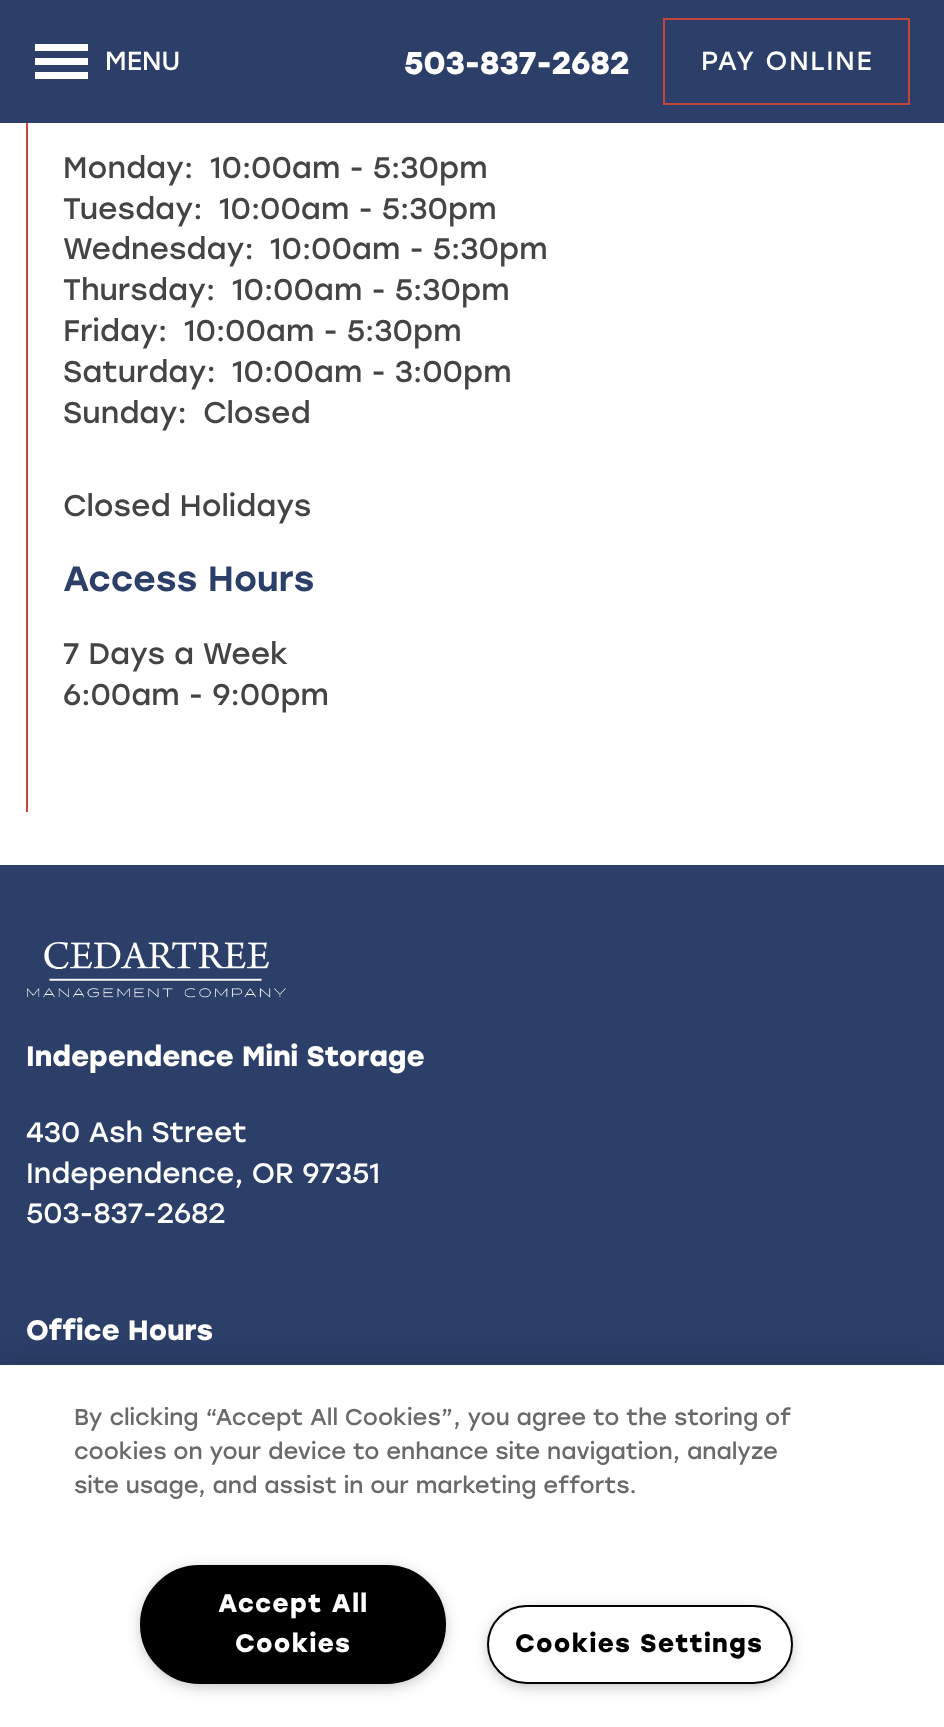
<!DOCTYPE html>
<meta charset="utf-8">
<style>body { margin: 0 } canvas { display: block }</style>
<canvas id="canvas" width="944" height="1727"></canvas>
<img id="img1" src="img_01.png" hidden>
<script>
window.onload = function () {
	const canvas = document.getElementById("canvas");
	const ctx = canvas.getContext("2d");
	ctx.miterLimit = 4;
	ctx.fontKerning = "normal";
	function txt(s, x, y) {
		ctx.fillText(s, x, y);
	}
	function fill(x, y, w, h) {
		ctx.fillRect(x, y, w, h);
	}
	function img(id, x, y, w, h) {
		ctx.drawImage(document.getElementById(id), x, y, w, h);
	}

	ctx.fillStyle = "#2C3F69";
	fill(0, 0, 944, 1727);
	ctx.fillStyle = "#FFFFFF";
	fill(35, 44, 53, 7);
	fill(35, 58, 53, 7);
	fill(35, 72, 53, 7);
	ctx.strokeStyle = "#C4463A";
	ctx.lineWidth = 2;
	ctx.strokeRect(664, 19, 245, 85);
	fill(0, 123, 944, 742);
	ctx.fillStyle = "#C4463A";
	fill(26, 123, 2, 689);
	img("img1", 27, 942, 259, 56);
	ctx.fillStyle = "rgba(0, 0, 0, 0.2)";
	ctx.filter = "blur(16px)";
	ctx.beginPath();
	ctx.rect(0, 1365, 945, 362);
	ctx.fill();
	ctx.filter = "none";
	ctx.fillStyle = "#FFFFFF";
	fill(0, 1365, 944, 362);
	ctx.fillStyle = "#999999";
	ctx.filter = "blur(9px)";
	ctx.beginPath();
	ctx.roundRect(145, 1573, 296, 109, 54.5);
	ctx.fill();
	ctx.filter = "none";
	ctx.fillStyle = "#000000";
	ctx.beginPath();
	ctx.roundRect(141, 1566, 304, 117, 58.5);
	ctx.fill();
	ctx.strokeStyle = "#000000";
	ctx.stroke();
	ctx.fillStyle = "#999999";
	ctx.filter = "blur(9px)";
	ctx.beginPath();
	ctx.roundRect(492, 1614, 296, 68, 34);
	ctx.fill();
	ctx.filter = "none";
	ctx.fillStyle = "#FFFFFF";
	ctx.beginPath();
	ctx.roundRect(488, 1606, 304, 77, 38.5);
	ctx.fill();
	ctx.stroke();
	ctx.font = "26.25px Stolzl";
	txt("MENU", 105, 70);
	ctx.font = "bold 31.5px Stolzl";
	txt("503-837-2682", 404, 74);
	ctx.letterSpacing = "1.75px";
	ctx.font = "26.25px Stolzl";
	txt("PAY ONLINE", 701, 70);
	ctx.letterSpacing = "0px";
	ctx.font = "29.75px Stolzl";
	ctx.fillStyle = "#444444";
	txt("Monday:", 63, 178);
	txt("10:00am - 5:30pm", 210, 178);
	txt("Tuesday:", 63, 219);
	txt("10:00am - 5:30pm", 219, 219);
	txt("Wednesday:", 63, 259);
	txt("10:00am - 5:30pm", 270, 259);
	txt("Thursday:", 63, 300);
	txt("10:00am - 5:30pm", 232, 300);
	txt("Friday:", 63, 341);
	txt("10:00am - 5:30pm", 184, 341);
	txt("Saturday:", 63, 382);
	txt("10:00am - 3:00pm", 232, 382);
	txt("Sunday:", 63, 423);
	txt("Closed", 203, 423);
	txt("Closed Holidays", 63, 516);
	ctx.font = "500 35px Stolzl";
	ctx.fillStyle = "#2C3F69";
	txt("Access Hours", 63, 591);
	ctx.font = "29.75px Stolzl";
	ctx.fillStyle = "#444444";
	txt("7 Days a Week", 63, 664);
	txt("6:00am - 9:00pm", 63, 705);
	ctx.font = "bold 28px Stolzl";
	ctx.fillStyle = "#FFFFFF";
	txt("Independence Mini Storage", 26, 1066);
	ctx.font = "28px Stolzl";
	txt("430 Ash Street", 26, 1142);
	txt("Independence", 26, 1183);
	txt(", OR 97351", 234, 1183);
	txt("503-837-2682", 26, 1223);
	ctx.font = "bold 28px Stolzl";
	txt("Office Hours", 26, 1340);
	ctx.font = "22.75px Stolzl";
	ctx.fillStyle = "#696969";
	txt("By clicking “Accept All Cookies”, you agree to the storing of", 74, 1425);
	txt("cookies on your device to enhance site navigation, analyze", 74, 1459);
	txt("site usage, and assist in our marketing efforts.", 74, 1493);
	ctx.letterSpacing = "1.25px";
	ctx.font = "bold 25.25px Stolzl";
	ctx.fillStyle = "#FFFFFF";
	txt("Accept All", 218, 1612);
	txt("Cookies", 235, 1652);
	ctx.fillStyle = "#000000";
	txt("Cookies Settings", 515, 1652);
};
</script>
